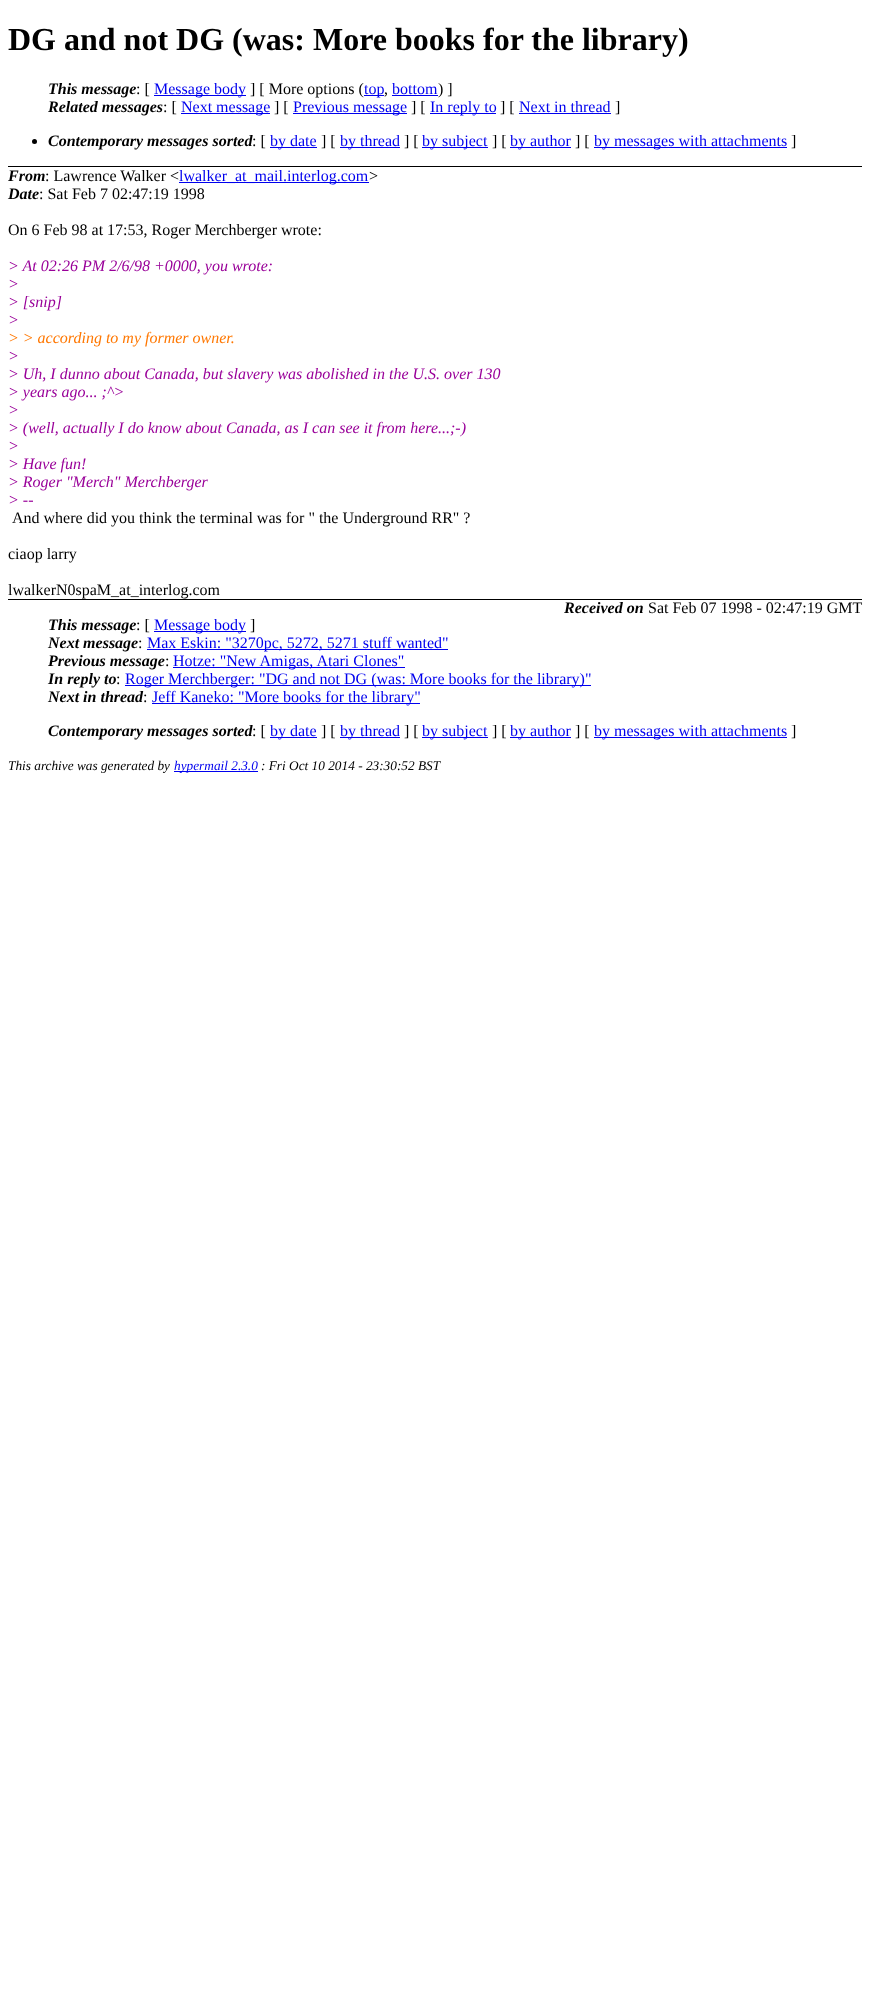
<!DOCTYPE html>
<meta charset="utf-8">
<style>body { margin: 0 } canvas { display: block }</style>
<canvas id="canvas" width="870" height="2010"></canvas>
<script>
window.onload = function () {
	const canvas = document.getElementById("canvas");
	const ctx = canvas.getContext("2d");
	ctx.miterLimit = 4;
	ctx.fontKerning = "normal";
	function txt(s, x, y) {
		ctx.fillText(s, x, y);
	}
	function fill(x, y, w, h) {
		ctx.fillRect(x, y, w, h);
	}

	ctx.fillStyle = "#FFFFFF";
	fill(0, 0, 870, 2010);
	ctx.fillStyle = "#000000";
	fill(8, 166, 854, 1);
	ctx.fillStyle = "#0000EE";
	fill(154, 95, 92, 1);
	fill(364, 95, 20, 1);
	fill(392, 95, 46, 1);
	fill(181, 113, 89, 1);
	fill(293, 113, 114, 1);
	fill(430, 113, 66, 1);
	fill(519, 113, 92, 1);
	ctx.fillStyle = "#000000";
	ctx.beginPath();
	ctx.arc(34.5, 141.5, 2.5, 0, Math.PI * 2);
	ctx.fill();
	ctx.fillStyle = "#0000EE";
	fill(270, 147, 47, 1);
	fill(340, 147, 60, 1);
	fill(422, 147, 66, 1);
	fill(510, 147, 61, 1);
	fill(594, 147, 193, 1);
	fill(179, 182, 190, 1);
	ctx.fillStyle = "#000000";
	fill(8, 599, 854, 1);
	ctx.fillStyle = "#0000EE";
	fill(154, 631, 92, 1);
	fill(147, 649, 301, 1);
	fill(173, 667, 232, 1);
	fill(125, 685, 466, 1);
	fill(152, 703, 268, 1);
	fill(270, 737, 47, 1);
	fill(340, 737, 60, 1);
	fill(422, 737, 66, 1);
	fill(510, 737, 61, 1);
	fill(594, 737, 193, 1);
	fill(174, 771, 84, 1);
	ctx.font = "bold 32px Liberation Serif";
	ctx.fillStyle = "#000000";
	txt("DG and not DG (was: More books for the library)", 8, 50);
	ctx.font = "italic bold 16px Liberation Serif";
	txt("This message", 48, 94);
	ctx.font = "16px Liberation Serif";
	txt(": [", 136, 94);
	ctx.fillStyle = "#0000EE";
	txt("Message body", 154, 94);
	ctx.fillStyle = "#000000";
	txt("] [ More options (", 250, 94);
	ctx.fillStyle = "#0000EE";
	txt("top", 364, 94);
	ctx.fillStyle = "#000000";
	txt(",", 384, 94);
	ctx.fillStyle = "#0000EE";
	txt("bottom", 392, 94);
	ctx.fillStyle = "#000000";
	txt(") ]", 438, 94);
	ctx.font = "italic bold 16px Liberation Serif";
	txt("Related messages", 48, 112);
	ctx.font = "16px Liberation Serif";
	txt(": [", 163, 112);
	ctx.fillStyle = "#0000EE";
	txt("Next message", 181, 112);
	ctx.fillStyle = "#000000";
	txt("] [", 274, 112);
	ctx.fillStyle = "#0000EE";
	txt("Previous message", 293, 112);
	ctx.fillStyle = "#000000";
	txt("] [", 411, 112);
	ctx.fillStyle = "#0000EE";
	txt("In reply to", 430, 112);
	ctx.fillStyle = "#000000";
	txt("] [", 500, 112);
	ctx.fillStyle = "#0000EE";
	txt("Next in thread", 519, 112);
	ctx.fillStyle = "#000000";
	txt("]", 615, 112);
	ctx.font = "italic bold 16px Liberation Serif";
	txt("Contemporary messages sorted", 48, 146);
	ctx.font = "16px Liberation Serif";
	txt(": [", 252, 146);
	ctx.fillStyle = "#0000EE";
	txt("by date", 270, 146);
	ctx.fillStyle = "#000000";
	txt("] [", 321, 146);
	ctx.fillStyle = "#0000EE";
	txt("by thread", 340, 146);
	ctx.fillStyle = "#000000";
	txt("] [", 404, 146);
	ctx.fillStyle = "#0000EE";
	txt("by subject", 422, 146);
	ctx.fillStyle = "#000000";
	txt("] [", 492, 146);
	ctx.fillStyle = "#0000EE";
	txt("by author", 510, 146);
	ctx.fillStyle = "#000000";
	txt("] [", 575, 146);
	ctx.fillStyle = "#0000EE";
	txt("by messages with attachments", 594, 146);
	ctx.fillStyle = "#000000";
	txt("]", 791, 146);
	ctx.font = "italic bold 16px Liberation Serif";
	txt("From", 8, 181);
	ctx.font = "16px Liberation Serif";
	txt(": Lawrence Walker <", 45, 181);
	ctx.fillStyle = "#0000EE";
	txt("lwalker_at_mail.interlog.com", 179, 181);
	ctx.fillStyle = "#000000";
	txt(">", 369, 181);
	ctx.font = "italic bold 16px Liberation Serif";
	txt("Date", 8, 199);
	ctx.font = "16px Liberation Serif";
	txt(": Sat Feb 7 02:47:19 1998", 39, 199);
	txt("On 6 Feb 98 at 17:53, Roger Merchberger wrote:", 8, 235);
	ctx.font = "italic 16px Liberation Serif";
	ctx.fillStyle = "#990099";
	txt("> At 02:26 PM 2/6/98 +0000, you wrote:", 8, 271);
	txt(">", 8, 289);
	txt("> [snip]", 8, 307);
	txt(">", 8, 325);
	ctx.fillStyle = "#FF7700";
	txt("> > according to my former owner.", 8, 343);
	ctx.fillStyle = "#990099";
	txt(">", 8, 361);
	txt("> Uh, I dunno about Canada, but slavery was abolished in the U.S. over 130", 8, 379);
	txt("> years ago... ;^>", 8, 397);
	txt(">", 8, 415);
	txt("> (well, actually I do know about Canada, as I can see it from here...;-)", 8, 433);
	txt(">", 8, 451);
	txt("> Have fun!", 8, 469);
	txt("> Roger \"Merch\" Merchberger", 8, 487);
	txt("> --", 8, 505);
	ctx.font = "16px Liberation Serif";
	ctx.fillStyle = "#000000";
	txt("And where did you think the terminal was for \" the Underground RR\" ?", 12, 523);
	txt("ciaop larry", 8, 559);
	txt("lwalkerN0spaM_at_interlog.com", 8, 595);
	ctx.font = "italic bold 16px Liberation Serif";
	txt("Received on", 564, 613);
	ctx.font = "16px Liberation Serif";
	txt("Sat Feb 07 1998 - 02:47:19 GMT", 648, 613);
	ctx.font = "italic bold 16px Liberation Serif";
	txt("This message", 48, 630);
	ctx.font = "16px Liberation Serif";
	txt(": [", 136, 630);
	ctx.fillStyle = "#0000EE";
	txt("Message body", 154, 630);
	ctx.fillStyle = "#000000";
	txt("]", 250, 630);
	ctx.font = "italic bold 16px Liberation Serif";
	txt("Next message", 48, 648);
	ctx.font = "16px Liberation Serif";
	txt(":", 138, 648);
	ctx.fillStyle = "#0000EE";
	txt("Max Eskin: \"3270pc, 5272, 5271 stuff wanted\"", 147, 648);
	ctx.font = "italic bold 16px Liberation Serif";
	ctx.fillStyle = "#000000";
	txt("Previous message", 48, 666);
	ctx.font = "16px Liberation Serif";
	txt(":", 165, 666);
	ctx.fillStyle = "#0000EE";
	txt("Hotze: \"New Amigas, Atari Clones\"", 173, 666);
	ctx.font = "italic bold 16px Liberation Serif";
	ctx.fillStyle = "#000000";
	txt("In reply to", 48, 684);
	ctx.font = "16px Liberation Serif";
	txt(":", 116, 684);
	ctx.fillStyle = "#0000EE";
	txt("Roger Merchberger: \"DG and not DG (was: More books for the library)\"", 125, 684);
	ctx.font = "italic bold 16px Liberation Serif";
	ctx.fillStyle = "#000000";
	txt("Next in thread", 48, 702);
	ctx.font = "16px Liberation Serif";
	txt(":", 143, 702);
	ctx.fillStyle = "#0000EE";
	txt("Jeff Kaneko: \"More books for the library\"", 152, 702);
	ctx.font = "italic bold 16px Liberation Serif";
	ctx.fillStyle = "#000000";
	txt("Contemporary messages sorted", 48, 736);
	ctx.font = "16px Liberation Serif";
	txt(": [", 252, 736);
	ctx.fillStyle = "#0000EE";
	txt("by date", 270, 736);
	ctx.fillStyle = "#000000";
	txt("] [", 321, 736);
	ctx.fillStyle = "#0000EE";
	txt("by thread", 340, 736);
	ctx.fillStyle = "#000000";
	txt("] [", 404, 736);
	ctx.fillStyle = "#0000EE";
	txt("by subject", 422, 736);
	ctx.fillStyle = "#000000";
	txt("] [", 492, 736);
	ctx.fillStyle = "#0000EE";
	txt("by author", 510, 736);
	ctx.fillStyle = "#000000";
	txt("] [", 575, 736);
	ctx.fillStyle = "#0000EE";
	txt("by messages with attachments", 594, 736);
	ctx.fillStyle = "#000000";
	txt("]", 791, 736);
	ctx.font = "italic 13.3px Liberation Serif";
	txt("This archive was generated by", 8, 770);
	ctx.fillStyle = "#0000EE";
	txt("hypermail 2.3.0", 174, 770);
	ctx.fillStyle = "#000000";
	txt(": Fri Oct 10 2014 - 23:30:52 BST", 261, 770);
};
</script>
